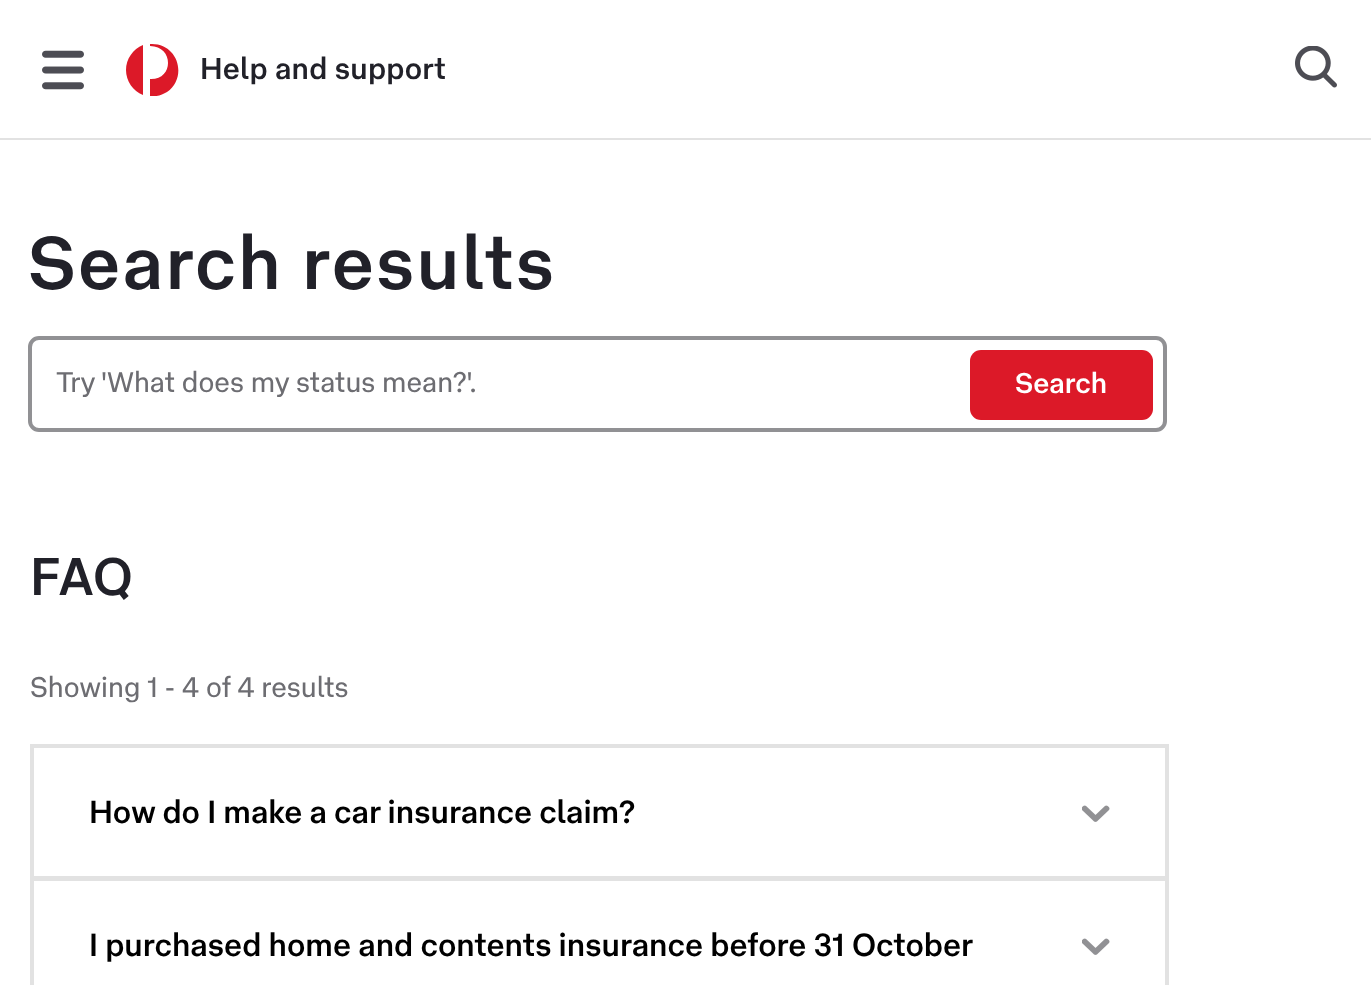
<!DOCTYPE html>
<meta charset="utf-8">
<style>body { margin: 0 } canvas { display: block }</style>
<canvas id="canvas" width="1371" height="985"></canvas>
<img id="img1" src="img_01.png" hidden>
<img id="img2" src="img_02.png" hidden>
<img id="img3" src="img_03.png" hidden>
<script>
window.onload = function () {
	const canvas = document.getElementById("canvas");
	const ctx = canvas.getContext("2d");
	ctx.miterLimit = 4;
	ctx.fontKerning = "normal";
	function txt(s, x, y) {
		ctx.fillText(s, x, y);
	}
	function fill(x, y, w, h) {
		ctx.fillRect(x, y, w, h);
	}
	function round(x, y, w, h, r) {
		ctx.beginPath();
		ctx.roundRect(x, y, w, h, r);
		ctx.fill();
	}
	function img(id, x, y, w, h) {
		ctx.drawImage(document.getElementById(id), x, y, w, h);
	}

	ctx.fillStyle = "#FFFFFF";
	fill(0, 0, 1371, 985);
	ctx.fillStyle = "#E2E2E2";
	fill(0, 138, 1371, 2);
	img("img1", 42, 50, 42, 40);
	ctx.save();
	ctx.beginPath();
	ctx.rect(126, 44, 53, 52);
	ctx.clip();
	ctx.fillStyle = "#DC1928";
	ctx.beginPath();
	ctx.moveTo(126, 70);
	ctx.bezierCurveTo(126, 81, 133, 91, 143, 95);
	ctx.lineTo(143, 45);
	ctx.bezierCurveTo(133, 49, 126, 59, 126, 70);
	ctx.closePath();
	ctx.moveTo(152, 44);
	ctx.lineTo(150, 44);
	ctx.lineTo(150, 46);
	ctx.bezierCurveTo(174, 46, 174, 80, 150, 79);
	ctx.lineTo(150, 96);
	ctx.bezierCurveTo(156, 97, 162, 95, 167, 92);
	ctx.bezierCurveTo(188, 77, 178, 44, 152, 44);
	ctx.closePath();
	ctx.fill();
	ctx.restore();
	img("img2", 1295, 46, 42, 42);
	ctx.beginPath();
	ctx.roundRect(30, 338, 1135, 92, 9);
	ctx.strokeStyle = "#919194";
	ctx.lineWidth = 4;
	ctx.stroke();
	ctx.fillStyle = "#DC1928";
	round(970, 350, 183, 70, 11);
	ctx.strokeStyle = "#E2E2E2";
	ctx.strokeRect(32, 746, 1135, 132);
	img("img3", 1082, 805, 28, 17);
	ctx.strokeRect(32, 879, 1135, 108);
	img("img3", 1082, 938, 28, 17);
	ctx.letterSpacing = "0.25px";
	ctx.font = "500 29.75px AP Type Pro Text";
	ctx.fillStyle = "#212129";
	txt("Help and support", 200, 79);
	ctx.letterSpacing = "2.25px";
	ctx.font = "500 73.5px AP Type Pro Text";
	txt("Search results", 28, 289);
	ctx.letterSpacing = "0px";
	ctx.font = "28px AP Type Pro Text";
	ctx.fillStyle = "#6D6D72";
	txt("Try 'What does my status mean?'.", 56, 392);
	ctx.font = "500 28px AP Type Pro Text";
	ctx.fillStyle = "#FFFFFF";
	txt("Search", 1015, 393);
	ctx.letterSpacing = "0.5px";
	ctx.font = "500 52px AP Type Pro Text";
	ctx.fillStyle = "#212129";
	txt("FAQ", 30, 595);
	ctx.letterSpacing = "0px";
	ctx.font = "28px AP Type Pro Text";
	ctx.fillStyle = "#6D6D72";
	txt("Showing 1 - 4 of 4 results", 30, 697);
	ctx.font = "500 31.5px AP Type Pro Text";
	ctx.fillStyle = "#000000";
	txt("How do I make a car insurance claim?", 89, 823);
	txt("I purchased home and contents insurance before 31 October", 89, 956);
};
</script>
